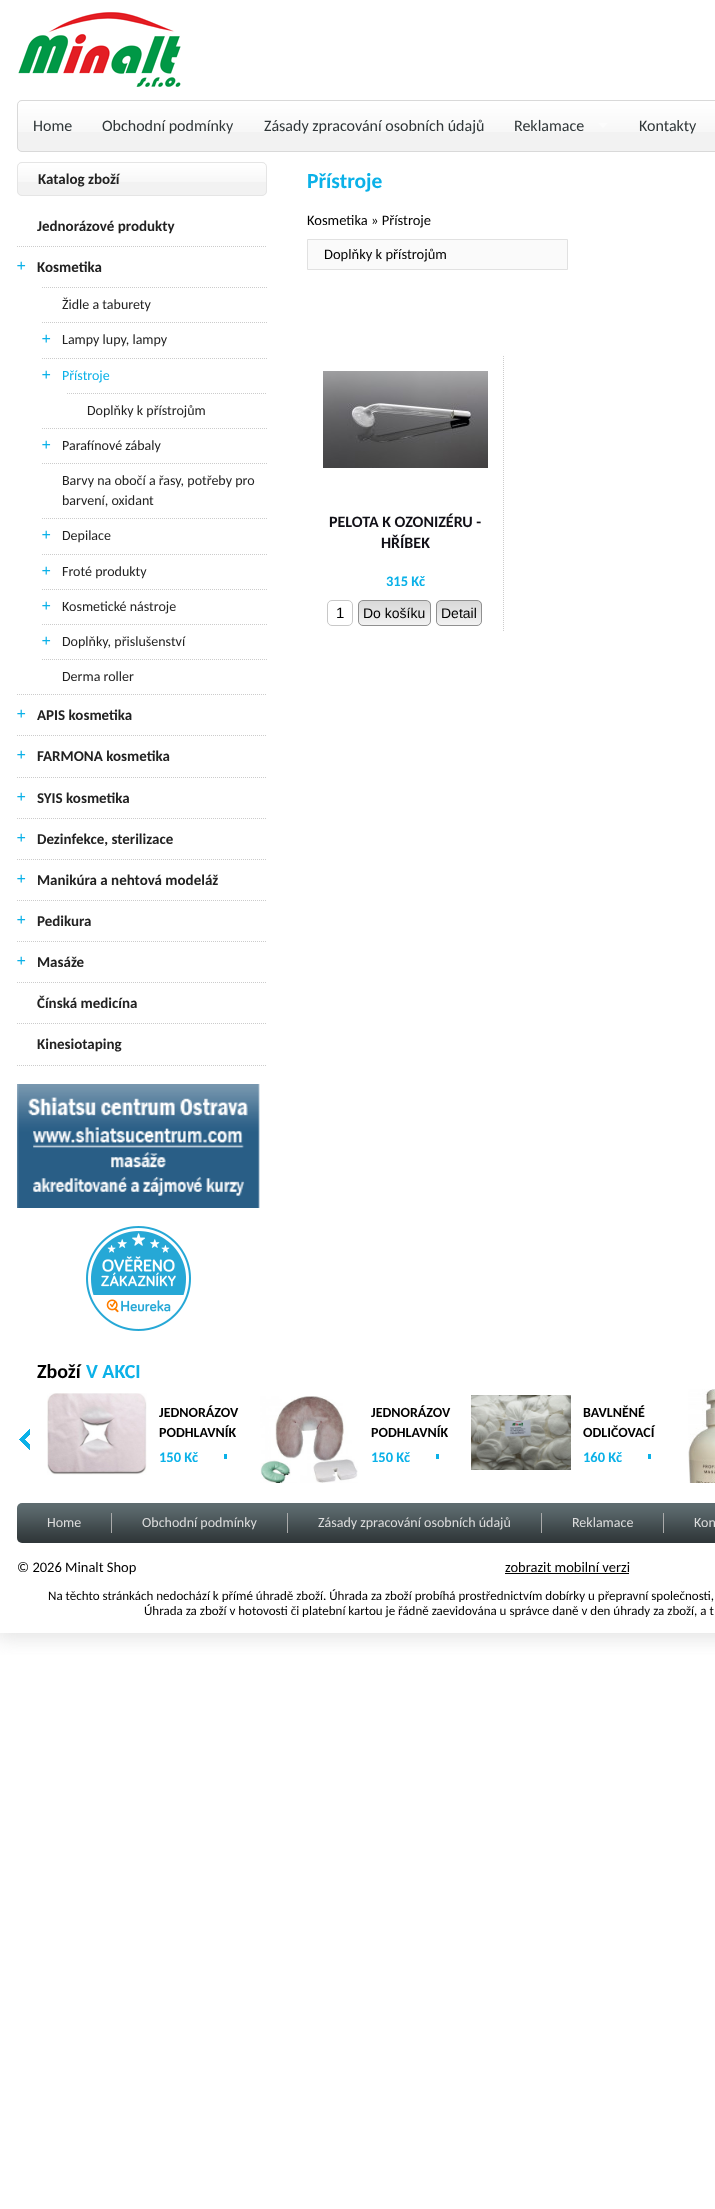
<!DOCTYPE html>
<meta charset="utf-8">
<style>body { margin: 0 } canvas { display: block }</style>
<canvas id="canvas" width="715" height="2209"></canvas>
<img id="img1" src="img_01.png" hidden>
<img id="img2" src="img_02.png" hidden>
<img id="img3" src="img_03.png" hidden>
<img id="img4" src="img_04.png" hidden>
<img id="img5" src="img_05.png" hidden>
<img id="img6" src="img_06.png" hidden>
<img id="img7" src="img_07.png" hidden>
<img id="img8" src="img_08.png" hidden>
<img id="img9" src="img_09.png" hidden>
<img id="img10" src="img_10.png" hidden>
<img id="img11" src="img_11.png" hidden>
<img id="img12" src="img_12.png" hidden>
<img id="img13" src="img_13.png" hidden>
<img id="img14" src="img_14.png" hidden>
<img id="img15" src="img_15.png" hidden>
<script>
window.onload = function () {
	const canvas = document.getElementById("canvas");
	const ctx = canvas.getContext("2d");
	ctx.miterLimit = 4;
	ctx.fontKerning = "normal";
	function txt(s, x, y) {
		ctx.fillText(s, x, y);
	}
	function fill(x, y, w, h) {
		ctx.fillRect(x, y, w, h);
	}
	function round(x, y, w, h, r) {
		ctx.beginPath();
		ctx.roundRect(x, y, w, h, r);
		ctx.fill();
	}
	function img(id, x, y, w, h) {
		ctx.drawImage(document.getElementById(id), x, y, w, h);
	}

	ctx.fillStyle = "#FFFFFF";
	fill(0, 0, 715, 2209);
	ctx.save();
	ctx.beginPath();
	ctx.rect(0, 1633, 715, 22);
	ctx.clip();
	ctx.fillStyle = "rgba(200, 200, 200, 0.5)";
	ctx.filter = "blur(10px)";
	ctx.beginPath();
	ctx.rect(-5, -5, 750, 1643);
	ctx.fill();
	ctx.filter = "none";
	ctx.restore();
	img("img1", 18, 12, 163, 75);
	ctx.fillStyle = "#F2F2F2";
	round(17, 100, 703, 52, 5);
	img("img2", 17, 101, 698, 31);
	ctx.beginPath();
	ctx.roundRect(17.5, 100.5, 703, 51, 4.5);
	ctx.strokeStyle = "#D9D9D9";
	ctx.stroke();
	ctx.fillStyle = "#FCFCFC";
	ctx.beginPath();
	ctx.moveTo(598, 123);
	ctx.lineTo(608, 123);
	ctx.lineTo(603, 128);
	ctx.closePath();
	ctx.fill();
	ctx.fillStyle = "#F2F2F2";
	round(17, 162, 250, 34, 5);
	img("img3", 17, 163, 250, 19);
	ctx.beginPath();
	ctx.roundRect(17.5, 162.5, 249, 33, 4.5);
	ctx.strokeStyle = "#E5E5E5";
	ctx.stroke();
	ctx.beginPath();
	ctx.moveTo(17, 246.5);
	ctx.lineTo(267, 246.5);
	ctx.strokeStyle = "#CCCCCC";
	ctx.setLineDash([1, 1]);
	ctx.stroke();
	ctx.beginPath();
	ctx.moveTo(17, 694.5);
	ctx.lineTo(267, 694.5);
	ctx.stroke();
	ctx.beginPath();
	ctx.moveTo(42, 287.5);
	ctx.lineTo(267, 287.5);
	ctx.stroke();
	ctx.beginPath();
	ctx.moveTo(42, 322.5);
	ctx.lineTo(267, 322.5);
	ctx.stroke();
	ctx.beginPath();
	ctx.moveTo(42, 358.5);
	ctx.lineTo(267, 358.5);
	ctx.stroke();
	ctx.beginPath();
	ctx.moveTo(67, 393.5);
	ctx.lineTo(267, 393.5);
	ctx.stroke();
	ctx.beginPath();
	ctx.moveTo(42, 428.5);
	ctx.lineTo(267, 428.5);
	ctx.stroke();
	ctx.beginPath();
	ctx.moveTo(42, 463.5);
	ctx.lineTo(267, 463.5);
	ctx.stroke();
	ctx.beginPath();
	ctx.moveTo(42, 518.5);
	ctx.lineTo(267, 518.5);
	ctx.stroke();
	ctx.beginPath();
	ctx.moveTo(42, 554.5);
	ctx.lineTo(267, 554.5);
	ctx.stroke();
	ctx.beginPath();
	ctx.moveTo(42, 589.5);
	ctx.lineTo(267, 589.5);
	ctx.stroke();
	ctx.beginPath();
	ctx.moveTo(42, 624.5);
	ctx.lineTo(267, 624.5);
	ctx.stroke();
	ctx.beginPath();
	ctx.moveTo(42, 659.5);
	ctx.lineTo(267, 659.5);
	ctx.stroke();
	ctx.beginPath();
	ctx.moveTo(17, 735.5);
	ctx.lineTo(267, 735.5);
	ctx.stroke();
	ctx.beginPath();
	ctx.moveTo(17, 777.5);
	ctx.lineTo(267, 777.5);
	ctx.stroke();
	ctx.beginPath();
	ctx.moveTo(17, 818.5);
	ctx.lineTo(267, 818.5);
	ctx.stroke();
	ctx.beginPath();
	ctx.moveTo(17, 859.5);
	ctx.lineTo(267, 859.5);
	ctx.stroke();
	ctx.beginPath();
	ctx.moveTo(17, 900.5);
	ctx.lineTo(267, 900.5);
	ctx.stroke();
	ctx.beginPath();
	ctx.moveTo(17, 941.5);
	ctx.lineTo(267, 941.5);
	ctx.stroke();
	ctx.beginPath();
	ctx.moveTo(17, 982.5);
	ctx.lineTo(267, 982.5);
	ctx.stroke();
	ctx.beginPath();
	ctx.moveTo(17, 1023.5);
	ctx.lineTo(267, 1023.5);
	ctx.stroke();
	ctx.beginPath();
	ctx.moveTo(17, 1065.5);
	ctx.lineTo(267, 1065.5);
	ctx.stroke();
	img("img4", 17, 1084, 243, 124);
	img("img5", 86, 1226, 105, 105);
	ctx.fillStyle = "#FAFAFA";
	ctx.beginPath();
	ctx.rect(307.5, 239.5, 260, 30);
	ctx.fill();
	ctx.strokeStyle = "#E1E1E1";
	ctx.setLineDash([]);
	ctx.stroke();
	img("img6", 503, 356, 1, 275);
	img("img7", 323, 371, 165, 97);
	ctx.beginPath();
	ctx.roundRect(327.5, 600.5, 25, 25, 4.5);
	ctx.strokeStyle = "#C8C8C8";
	ctx.stroke();
	img("img8", 358, 601, 73, 25);
	ctx.beginPath();
	ctx.roundRect(358.5, 600.5, 72, 25, 4.5);
	ctx.strokeStyle = "#909090";
	ctx.stroke();
	img("img9", 436, 601, 46, 25);
	ctx.beginPath();
	ctx.roundRect(436.5, 600.5, 45, 25, 4.5);
	ctx.stroke();
	img("img10", 19, 1429, 11, 21);
	img("img11", 47, 1393, 100, 82);
	ctx.fillStyle = "#0BB1E8";
	fill(224, 1454, 3, 5);
	img("img12", 260, 1396, 98, 87);
	fill(436, 1454, 3, 5);
	img("img13", 471, 1395, 100, 75);
	fill(648, 1454, 3, 5);
	img("img14", 688, 1389, 27, 94);
	img("img15", 17, 1503, 698, 40);
	ctx.fillStyle = "#AAAAAA";
	fill(111, 1513, 1, 20);
	fill(287, 1513, 1, 20);
	fill(541, 1513, 1, 20);
	fill(663, 1513, 1, 20);
	ctx.fillStyle = "#000000";
	fill(505, 1573, 124, 1);
	ctx.font = "16px Carlito";
	ctx.fillStyle = "#2F3638";
	txt("Home", 33, 131);
	txt("Obchodní podmínky", 102, 131);
	txt("Zásady zpracování osobních údajů", 264, 131);
	txt("Reklamace", 514, 131);
	txt("Kontakty", 639, 131);
	ctx.font = "bold 15px Carlito";
	ctx.fillStyle = "#222222";
	txt("Katalog zboží", 38, 184);
	txt("Jednorázové produkty", 37, 231);
	ctx.font = "17px Carlito";
	ctx.fillStyle = "#0BB1E8";
	txt("+", 17, 271);
	ctx.font = "bold 15px Carlito";
	ctx.fillStyle = "#222222";
	txt("Kosmetika", 37, 272);
	ctx.font = "14px Carlito";
	txt("Židle a taburety", 62, 309);
	ctx.font = "17px Carlito";
	ctx.fillStyle = "#0BB1E8";
	txt("+", 42, 344);
	ctx.font = "14px Carlito";
	ctx.fillStyle = "#222222";
	txt("Lampy lupy, lampy", 62, 344);
	ctx.font = "17px Carlito";
	ctx.fillStyle = "#0BB1E8";
	txt("+", 42, 380);
	ctx.font = "14px Carlito";
	txt("Přístroje", 62, 380);
	ctx.fillStyle = "#222222";
	txt("Doplňky k přístrojům", 87, 415);
	ctx.font = "17px Carlito";
	ctx.fillStyle = "#0BB1E8";
	txt("+", 42, 450);
	ctx.font = "14px Carlito";
	ctx.fillStyle = "#222222";
	txt("Parafínové zábaly", 62, 450);
	txt("Barvy na obočí a řasy, potřeby pro", 62, 485);
	txt("barvení, oxidant", 62, 505);
	ctx.font = "17px Carlito";
	ctx.fillStyle = "#0BB1E8";
	txt("+", 42, 540);
	ctx.font = "14px Carlito";
	ctx.fillStyle = "#222222";
	txt("Depilace", 62, 540);
	ctx.font = "17px Carlito";
	ctx.fillStyle = "#0BB1E8";
	txt("+", 42, 576);
	ctx.font = "14px Carlito";
	ctx.fillStyle = "#222222";
	txt("Froté produkty", 62, 576);
	ctx.font = "17px Carlito";
	ctx.fillStyle = "#0BB1E8";
	txt("+", 42, 611);
	ctx.font = "14px Carlito";
	ctx.fillStyle = "#222222";
	txt("Kosmetické nástroje", 62, 611);
	ctx.font = "17px Carlito";
	ctx.fillStyle = "#0BB1E8";
	txt("+", 42, 646);
	ctx.font = "14px Carlito";
	ctx.fillStyle = "#222222";
	txt("Doplňky, přislušenství", 62, 646);
	txt("Derma roller", 62, 681);
	ctx.font = "17px Carlito";
	ctx.fillStyle = "#0BB1E8";
	txt("+", 17, 719);
	ctx.font = "bold 15px Carlito";
	ctx.fillStyle = "#222222";
	txt("APIS kosmetika", 37, 720);
	ctx.font = "17px Carlito";
	ctx.fillStyle = "#0BB1E8";
	txt("+", 17, 760);
	ctx.font = "bold 15px Carlito";
	ctx.fillStyle = "#222222";
	txt("FARMONA kosmetika", 37, 761);
	ctx.font = "17px Carlito";
	ctx.fillStyle = "#0BB1E8";
	txt("+", 17, 802);
	ctx.font = "bold 15px Carlito";
	ctx.fillStyle = "#222222";
	txt("SYIS kosmetika", 37, 803);
	ctx.font = "17px Carlito";
	ctx.fillStyle = "#0BB1E8";
	txt("+", 17, 843);
	ctx.font = "bold 15px Carlito";
	ctx.fillStyle = "#222222";
	txt("Dezinfekce, sterilizace", 37, 844);
	ctx.font = "17px Carlito";
	ctx.fillStyle = "#0BB1E8";
	txt("+", 17, 884);
	ctx.font = "bold 15px Carlito";
	ctx.fillStyle = "#222222";
	txt("Manikúra a nehtová modeláž", 37, 885);
	ctx.font = "17px Carlito";
	ctx.fillStyle = "#0BB1E8";
	txt("+", 17, 925);
	ctx.font = "bold 15px Carlito";
	ctx.fillStyle = "#222222";
	txt("Pedikura", 37, 926);
	ctx.font = "17px Carlito";
	ctx.fillStyle = "#0BB1E8";
	txt("+", 17, 966);
	ctx.font = "bold 15px Carlito";
	ctx.fillStyle = "#222222";
	txt("Masáže", 37, 967);
	txt("Čínská medicína", 37, 1008);
	txt("Kinesiotaping", 37, 1049);
	ctx.font = "bold 21.5px Carlito";
	ctx.fillStyle = "#0BB1E8";
	txt("Přístroje", 307, 188);
	ctx.font = "14.5px Carlito";
	ctx.fillStyle = "#000000";
	txt("Kosmetika » Přístroje", 307, 225);
	txt("Doplňky k přístrojům", 324, 259);
	ctx.font = "bold 16px Carlito";
	ctx.fillStyle = "#111017";
	txt("PELOTA K OZONIZÉRU -", 329, 527);
	txt("HŘÍBEK", 381, 548);
	ctx.font = "bold 14.5px Carlito";
	ctx.fillStyle = "#0BB1E8";
	txt("315 Kč", 386, 586);
	ctx.font = "15px Liberation Sans";
	ctx.fillStyle = "#000000";
	txt("1", 336, 618);
	ctx.font = "14px Liberation Sans";
	txt("Do košíku", 363, 618);
	txt("Detail", 441, 618);
	ctx.font = "bold 20px Carlito";
	txt("Zboží", 37, 1378);
	ctx.fillStyle = "#0BB1E8";
	txt("V AKCI", 86, 1378);
	ctx.font = "bold 14px Carlito";
	ctx.fillStyle = "#000000";
	txt("JEDNORÁZOV", 159, 1417);
	txt("PODHLAVNÍK", 159, 1437);
	ctx.font = "bold 14.5px Carlito";
	ctx.fillStyle = "#0BB1E8";
	txt("150 Kč", 159, 1462);
	ctx.font = "bold 14px Carlito";
	ctx.fillStyle = "#000000";
	txt("JEDNORÁZOV", 371, 1417);
	txt("PODHLAVNÍK", 371, 1437);
	ctx.font = "bold 14.5px Carlito";
	ctx.fillStyle = "#0BB1E8";
	txt("150 Kč", 371, 1462);
	ctx.font = "bold 14px Carlito";
	ctx.fillStyle = "#000000";
	txt("BAVLNĚNÉ", 583, 1417);
	txt("ODLIČOVACÍ", 583, 1437);
	ctx.font = "bold 14.5px Carlito";
	ctx.fillStyle = "#0BB1E8";
	txt("160 Kč", 583, 1462);
	ctx.font = "14px Carlito";
	ctx.fillStyle = "#DDDDDD";
	txt("Home", 47, 1527);
	txt("Obchodní podmínky", 142, 1527);
	txt("Zásady zpracování osobních údajů", 318, 1527);
	txt("Reklamace", 572, 1527);
	txt("Kon", 694, 1527);
	ctx.font = "14.5px Carlito";
	ctx.fillStyle = "#000000";
	txt("© 2026 Minalt Shop", 17, 1572);
	txt("zobrazit mobilní verzi", 505, 1572);
	ctx.font = "13px Carlito";
	txt("Na těchto stránkách nedochází k přímé úhradě zboží. Úhrada za zboží probíhá prostřednictvím dobírky u přepravní společnosti,", 48, 1600);
	txt("Úhrada za zboží v hotovosti či platební kartou je řádně zaevidována u správce daně v den úhrady za zboží, a t", 144, 1615);
};
</script>
